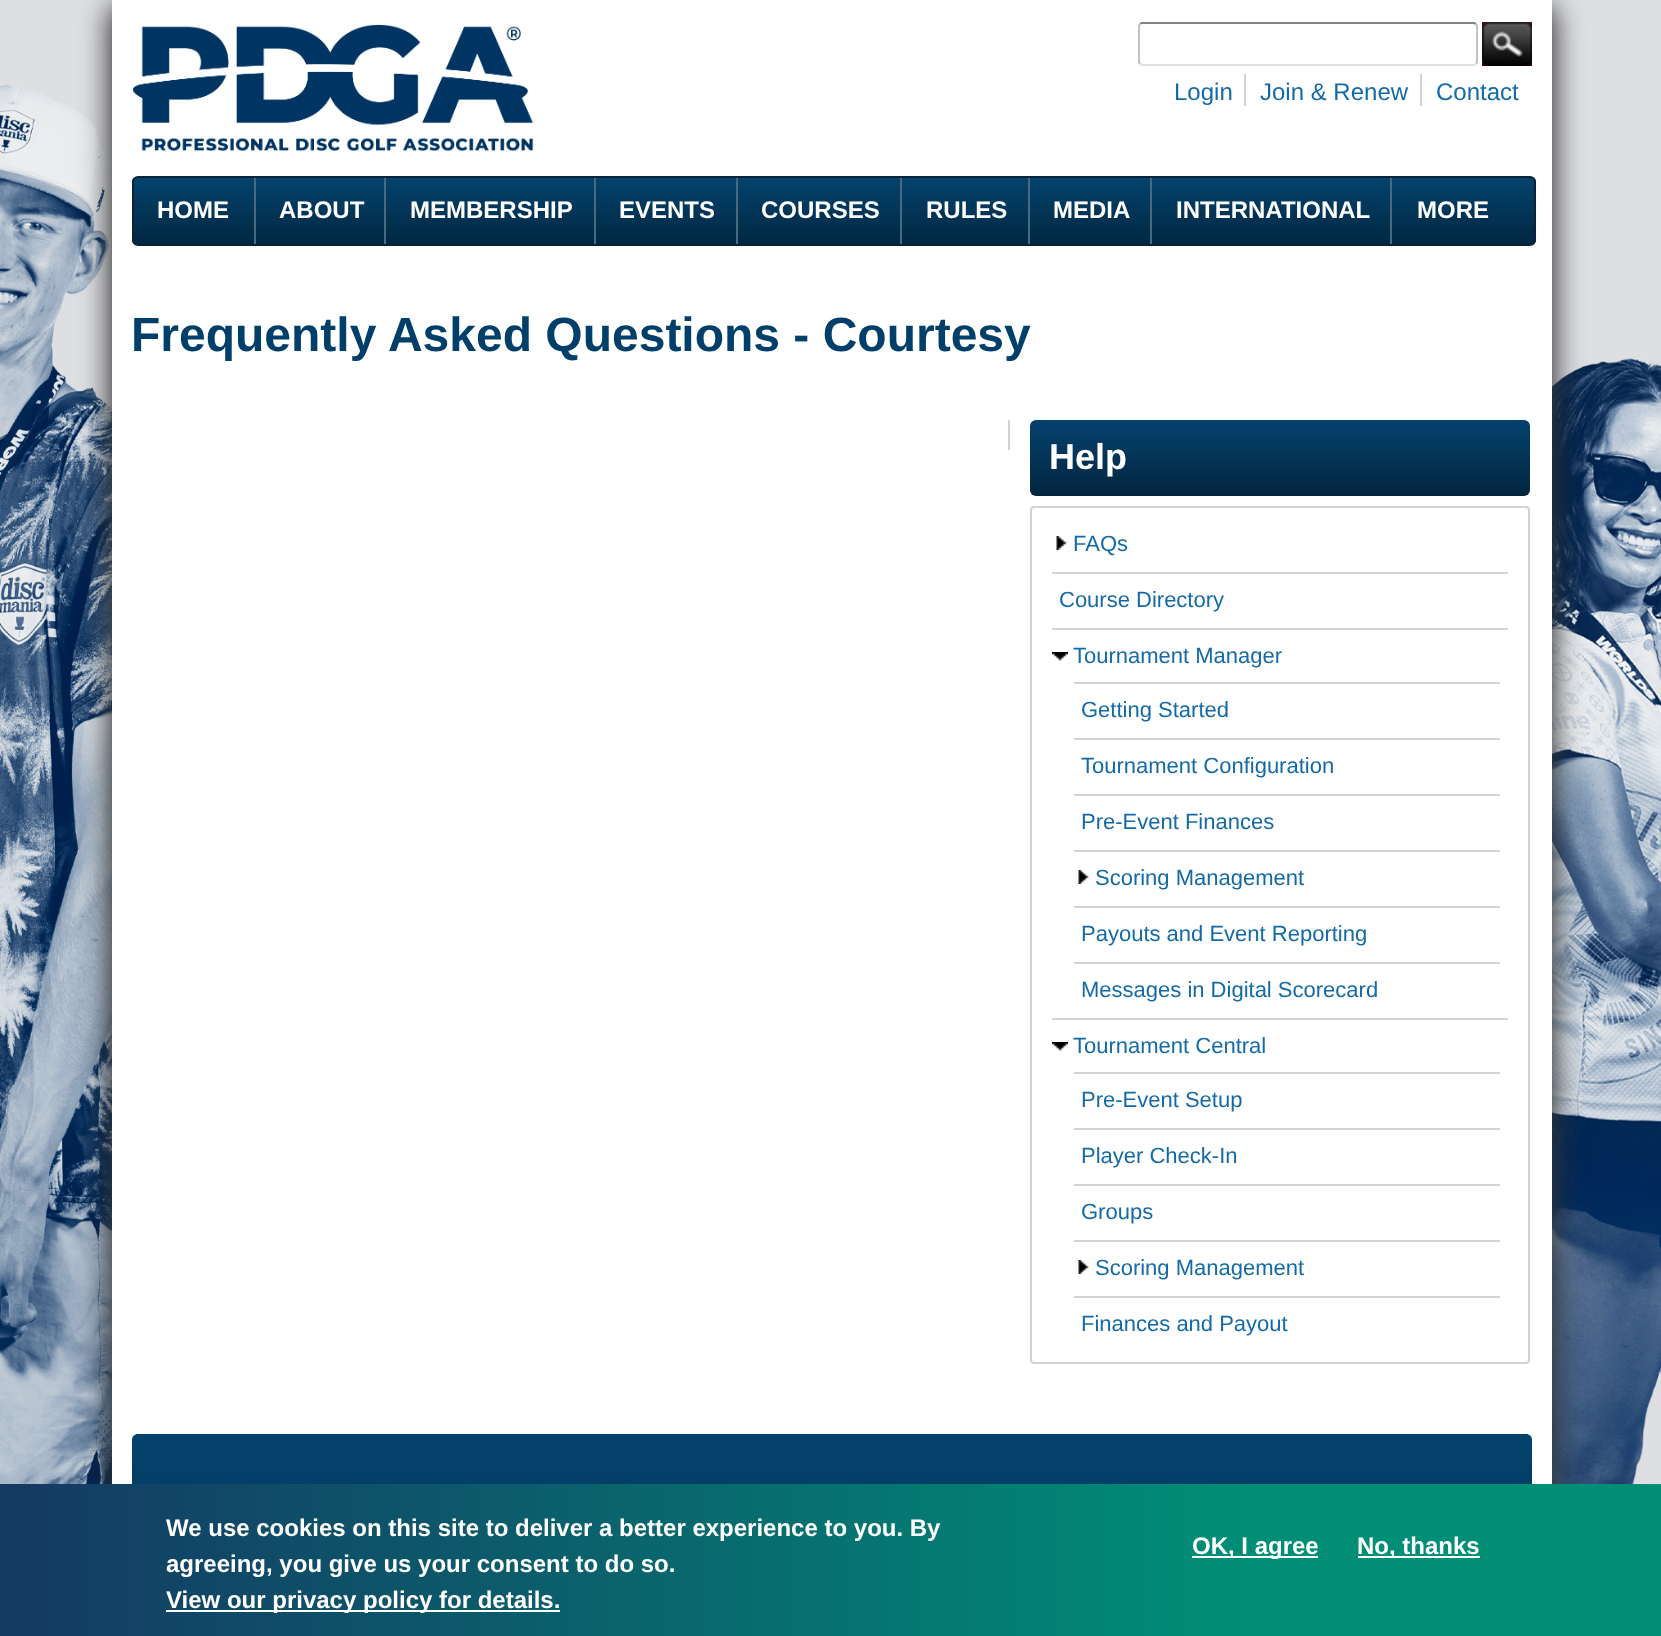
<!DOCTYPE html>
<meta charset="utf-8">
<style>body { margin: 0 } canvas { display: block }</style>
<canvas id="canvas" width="1661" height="1636"></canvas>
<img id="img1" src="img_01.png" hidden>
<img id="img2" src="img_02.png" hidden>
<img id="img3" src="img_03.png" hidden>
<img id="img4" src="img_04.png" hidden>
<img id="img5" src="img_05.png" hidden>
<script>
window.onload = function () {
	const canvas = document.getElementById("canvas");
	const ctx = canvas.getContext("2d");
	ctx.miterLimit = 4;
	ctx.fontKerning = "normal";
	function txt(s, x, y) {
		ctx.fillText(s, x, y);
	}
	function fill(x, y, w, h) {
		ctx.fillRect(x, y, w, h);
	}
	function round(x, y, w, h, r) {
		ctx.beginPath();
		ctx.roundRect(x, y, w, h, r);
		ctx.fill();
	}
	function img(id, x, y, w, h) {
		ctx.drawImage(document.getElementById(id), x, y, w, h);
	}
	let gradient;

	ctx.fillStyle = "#DEDFE3";
	fill(0, 0, 1661, 1636);
	img("img1", 0, 84, 1661, 1400);
	ctx.fillStyle = "#333333";
	ctx.filter = "blur(15px)";
	ctx.beginPath();
	ctx.rect(110, 8, 1424, 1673);
	ctx.fill();
	ctx.filter = "none";
	ctx.filter = "blur(15px)";
	ctx.beginPath();
	ctx.rect(130, 8, 1424, 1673);
	ctx.fill();
	ctx.filter = "none";
	ctx.fillStyle = "#FFFFFF";
	fill(112, 0, 1440, 1484);
	img("img2", 132, 24, 402, 128);
	ctx.beginPath();
	ctx.moveTo(1140, 24);
	ctx.lineTo(1141.5, 23);
	ctx.lineTo(1252.5, 23);
	ctx.lineTo(1474, 23);
	ctx.lineTo(1476, 24);
	ctx.strokeStyle = "#848484";
	ctx.lineWidth = 2;
	ctx.stroke();
	ctx.beginPath();
	ctx.moveTo(1476, 24);
	ctx.lineTo(1477, 26);
	ctx.lineTo(1477, 62);
	ctx.lineTo(1476, 64);
	ctx.strokeStyle = "#C1C1C1";
	ctx.stroke();
	ctx.beginPath();
	ctx.moveTo(1476, 64);
	ctx.lineTo(1474.5, 65);
	ctx.lineTo(1363.5, 65);
	ctx.lineTo(1142, 65);
	ctx.lineTo(1140, 64);
	ctx.strokeStyle = "#E1E1E1";
	ctx.stroke();
	ctx.beginPath();
	ctx.moveTo(1140, 64);
	ctx.lineTo(1139, 62);
	ctx.lineTo(1139, 26);
	ctx.lineTo(1140, 24);
	ctx.strokeStyle = "#C1C1C1";
	ctx.stroke();
	img("img3", 1482, 22, 50, 44);
	ctx.fillStyle = "#D3D3D3";
	fill(1244, 74, 2, 32);
	fill(1420, 74, 2, 32);
	ctx.save();
	ctx.beginPath();
	ctx.roundRect(132, 176, 1404, 70, 6);
	ctx.clip();
	gradient = ctx.createLinearGradient(834, 178, 834, 244);
	gradient.addColorStop(0, "#04436E");
	gradient.addColorStop(1, "#012741");
	ctx.fillStyle = gradient;
	fill(132, 178, 1404, 66);
	ctx.restore();
	ctx.beginPath();
	ctx.roundRect(133, 177, 1402, 68, 5);
	ctx.strokeStyle = "#0B223A";
	ctx.stroke();
	ctx.fillStyle = "#486A81";
	fill(254, 178, 2, 66);
	fill(384, 178, 2, 66);
	fill(594, 178, 2, 66);
	fill(736, 178, 2, 66);
	fill(900, 178, 2, 66);
	fill(1028, 178, 2, 66);
	fill(1150, 178, 2, 66);
	fill(1390, 178, 2, 66);
	ctx.fillStyle = "#D3D3D3";
	fill(1008, 420, 2, 30);
	gradient = ctx.createLinearGradient(1280, 420, 1280, 496);
	gradient.addColorStop(0, "#05426E");
	gradient.addColorStop(1, "#03253E");
	ctx.fillStyle = gradient;
	round(1030, 420, 500, 76, 6);
	ctx.beginPath();
	ctx.roundRect(1031, 507, 498, 856, 3);
	ctx.strokeStyle = "#D3D3D3";
	ctx.stroke();
	img("img4", 1056, 536, 11, 14);
	ctx.fillStyle = "#D3D3D3";
	fill(1052, 572, 456, 2);
	fill(1052, 628, 456, 2);
	img("img5", 1052, 652, 16, 9);
	fill(1052, 1018, 456, 2);
	fill(1074, 682, 426, 2);
	fill(1074, 738, 426, 2);
	fill(1074, 794, 426, 2);
	fill(1074, 850, 426, 2);
	img("img4", 1078, 870, 11, 14);
	fill(1074, 906, 426, 2);
	fill(1074, 962, 426, 2);
	img("img5", 1052, 1042, 16, 9);
	fill(1074, 1072, 426, 2);
	fill(1074, 1128, 426, 2);
	fill(1074, 1184, 426, 2);
	fill(1074, 1240, 426, 2);
	img("img4", 1078, 1260, 11, 14);
	fill(1074, 1296, 426, 2);
	gradient = ctx.createLinearGradient(832, 1434, 832, 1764);
	gradient.addColorStop(0, "#04426D");
	gradient.addColorStop(1, "#022E4D");
	ctx.fillStyle = gradient;
	ctx.beginPath();
	ctx.moveTo(138, 1434);
	ctx.lineTo(1526, 1434);
	ctx.bezierCurveTo(1529.5, 1434, 1532, 1436.5, 1532, 1440);
	ctx.lineTo(1532, 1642);
	ctx.lineTo(132, 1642);
	ctx.lineTo(132, 1440);
	ctx.bezierCurveTo(132, 1436.5, 134.5, 1434, 138, 1434);
	ctx.closePath();
	ctx.fill();
	gradient = ctx.createLinearGradient(0, 1560, 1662, 1560);
	gradient.addColorStop(0, "#143963");
	gradient.addColorStop(0.75, "#008E77");
	ctx.fillStyle = gradient;
	fill(0, 1484, 1661, 152);
	ctx.fillStyle = "#FFFFFF";
	fill(166, 1610, 394, 2);
	fill(1192, 1556, 126, 2);
	fill(1358, 1556, 122, 2);
	ctx.font = "24px Liberation Sans";
	ctx.fillStyle = "#136AA6";
	txt("Login", 1174, 100);
	txt("Join & Renew", 1260, 100);
	txt("Contact", 1436, 100);
	ctx.font = "bold 24px Liberation Sans";
	ctx.fillStyle = "#FFFFFF";
	txt("HOME", 157, 218);
	txt("ABOUT", 279, 218);
	txt("MEMBERSHIP", 410, 218);
	txt("EVENTS", 619, 218);
	txt("COURSES", 761, 218);
	txt("RULES", 926, 218);
	txt("MEDIA", 1053, 218);
	txt("INTERNATIONAL", 1176, 218);
	txt("MORE", 1417, 218);
	ctx.font = "bold 48px Liberation Sans";
	ctx.fillStyle = "#003F6A";
	txt("Frequently Asked Questions - Courtesy", 131, 351);
	ctx.font = "bold 36px Liberation Sans";
	ctx.fillStyle = "#FFFFFF";
	txt("Help", 1049, 469);
	ctx.font = "22px Liberation Sans";
	ctx.fillStyle = "#136AA6";
	txt("FAQs", 1073, 551);
	txt("Course Directory", 1059, 607);
	txt("Tournament Manager", 1073, 663);
	txt("Getting Started", 1081, 717);
	txt("Tournament Configuration", 1081, 773);
	txt("Pre-Event Finances", 1081, 829);
	txt("Scoring Management", 1095, 885);
	txt("Payouts and Event Reporting", 1081, 941);
	txt("Messages in Digital Scorecard", 1081, 997);
	txt("Tournament Central", 1073, 1053);
	txt("Pre-Event Setup", 1081, 1107);
	txt("Player Check-In", 1081, 1163);
	txt("Groups", 1081, 1219);
	txt("Scoring Management", 1095, 1275);
	txt("Finances and Payout", 1081, 1331);
	ctx.font = "bold 24px Liberation Sans";
	ctx.fillStyle = "#FFFFFF";
	txt("We use cookies on this site to deliver a better experience to you. By", 166, 1536);
	txt("agreeing, you give us your consent to do so.", 166, 1572);
	txt("View our privacy policy for details.", 166, 1608);
	txt("OK, I agree", 1192, 1554);
	txt("No, thanks", 1357, 1554);
};
</script>
